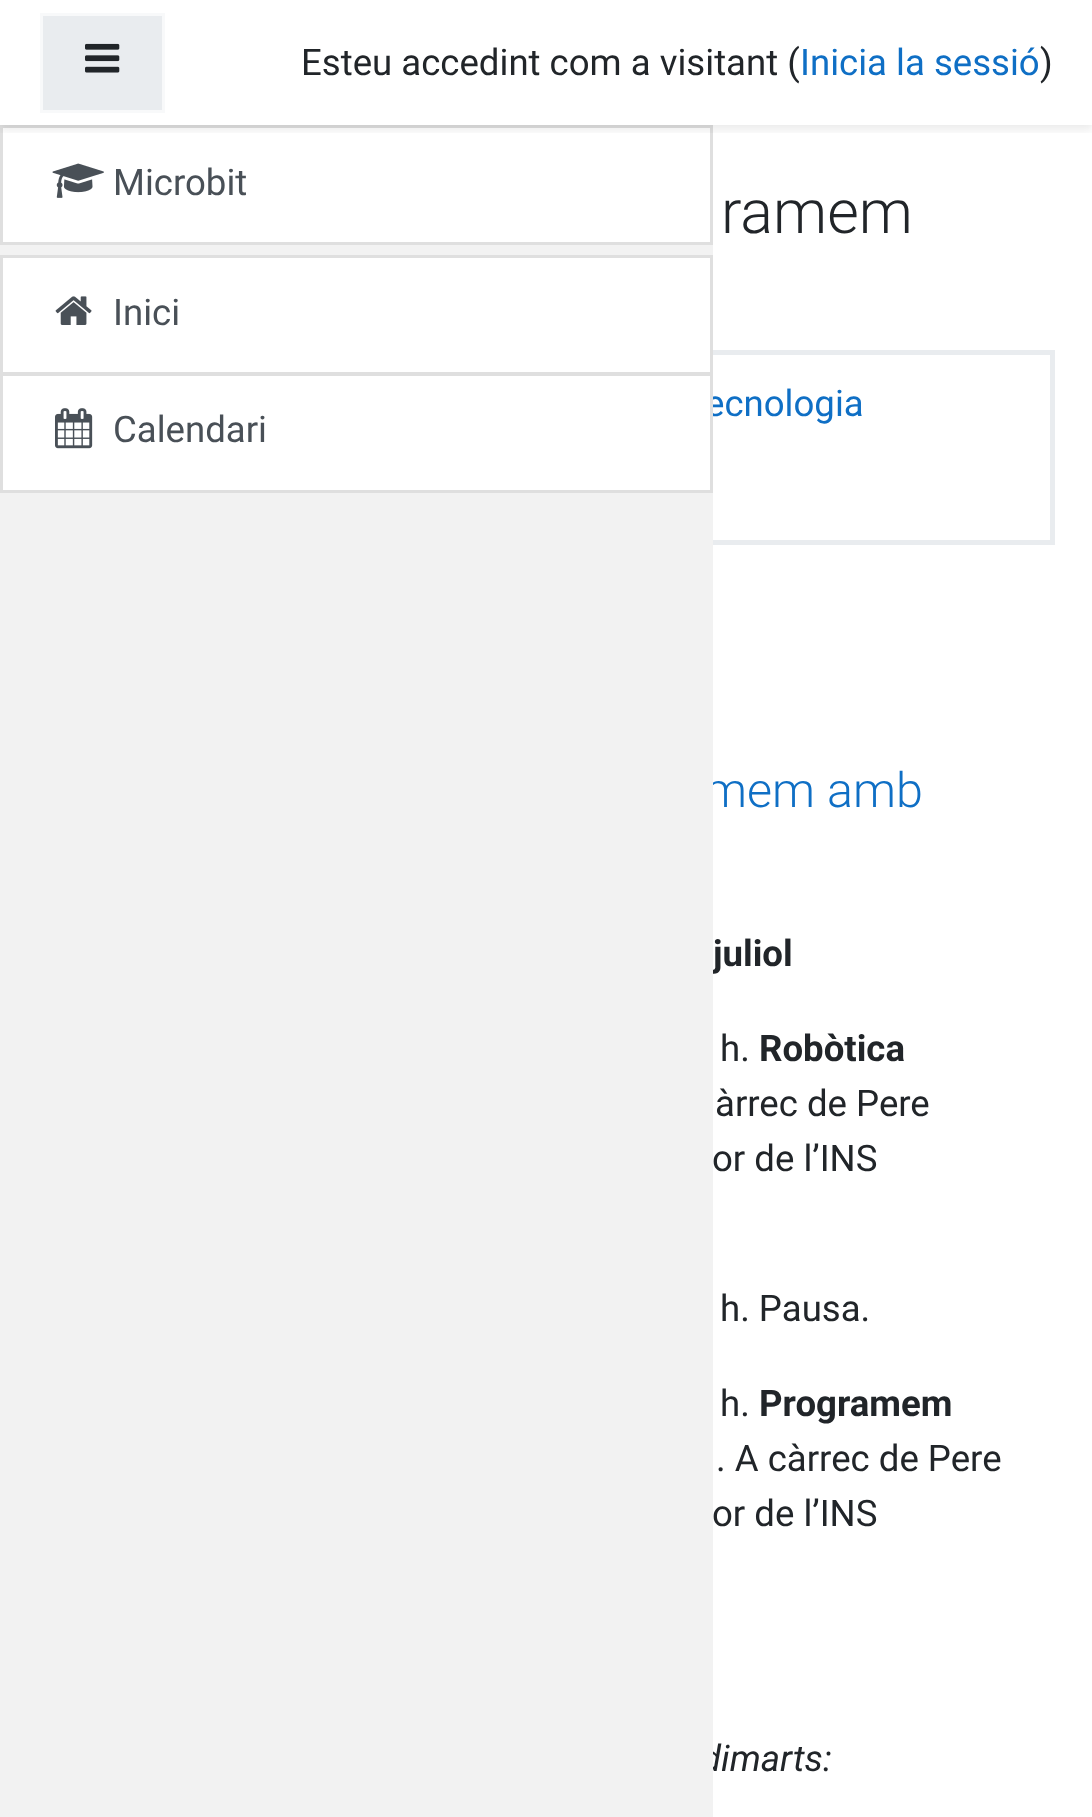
<!DOCTYPE html>
<meta charset="utf-8">
<style>body { margin: 0 } canvas { display: block }</style>
<canvas id="canvas" width="1092" height="1817"></canvas>
<img id="img1" src="img_01.png" hidden>
<img id="img2" src="img_02.png" hidden>
<img id="img3" src="img_04.png" hidden>
<img id="img4" src="img_03.png" hidden>
<script>
window.onload = function () {
	const canvas = document.getElementById("canvas");
	const ctx = canvas.getContext("2d");
	ctx.miterLimit = 4;
	ctx.fontKerning = "normal";
	function txt(s, x, y) {
		ctx.fillText(s, x, y);
	}
	function fill(x, y, w, h) {
		ctx.fillRect(x, y, w, h);
	}
	function img(id, x, y, w, h) {
		ctx.drawImage(document.getElementById(id), x, y, w, h);
	}

	ctx.fillStyle = "#FFFFFF";
	fill(0, 0, 1092, 1817);
	ctx.strokeStyle = "#DFDFDF";
	ctx.lineWidth = 3;
	ctx.strokeRect(1.5, 126.5, 710, 117);
	ctx.save();
	ctx.beginPath();
	ctx.rect(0, 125, 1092, 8);
	ctx.clip();
	ctx.fillStyle = "rgba(0, 0, 0, 0.08)";
	ctx.filter = "blur(5px)";
	ctx.beginPath();
	ctx.rect(0, 5, 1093, 125);
	ctx.fill();
	ctx.filter = "none";
	ctx.restore();
	ctx.fillStyle = "#E9ECEF";
	ctx.beginPath();
	ctx.rect(41.5, 14.5, 122, 97);
	ctx.fill();
	ctx.strokeStyle = "#F8F9FA";
	ctx.stroke();
	img("img1", 85, 43, 35, 30);
	img("img2", 52, 163, 52, 35);
	ctx.strokeStyle = "#E9ECEF";
	ctx.lineWidth = 5;
	ctx.strokeRect(40.5, 352.5, 1012, 190);
	ctx.font = "36.6px Roboto";
	ctx.fillStyle = "#212529";
	txt("Esteu accedint com a visitant (", 301, 75);
	ctx.fillStyle = "#0F6FC5";
	txt("Inicia la sessió", 800, 75);
	ctx.fillStyle = "#212529";
	txt(")", 1040, 75);
	ctx.fillStyle = "#495057";
	txt("Microbit", 113, 195);
	ctx.font = "300 61px Roboto";
	ctx.fillStyle = "#212529";
	txt("ramem", 721, 233);
	ctx.font = "36.6px Roboto";
	ctx.fillStyle = "#0F6FC5";
	txt("ecnologia", 705, 416);
	ctx.font = "300 48.5px Roboto";
	txt("mem amb", 704, 807);
	ctx.font = "bold 36.6px Roboto";
	ctx.fillStyle = "#212529";
	txt("juliol", 713, 966);
	ctx.font = "36.6px Roboto";
	txt("h.", 720, 1061);
	ctx.font = "bold 36.6px Roboto";
	txt("Robòtica", 759, 1061);
	ctx.font = "36.6px Roboto";
	txt("àrrec de Pere", 715, 1116);
	txt("or de l’INS", 712, 1171);
	txt("h. Pausa.", 720, 1321);
	txt("h.", 720, 1416);
	ctx.font = "bold 36.6px Roboto";
	txt("Programem", 759, 1416);
	ctx.font = "36.6px Roboto";
	txt(". A càrrec de Pere", 716, 1471);
	txt("or de l’INS", 712, 1526);
	ctx.font = "italic 36.6px Roboto";
	txt("dimarts:", 701, 1771);
	ctx.fillStyle = "#F2F2F2";
	fill(0, 245, 713, 1572);
	ctx.fillStyle = "#FFFFFF";
	ctx.beginPath();
	ctx.rect(1.5, 256.5, 710, 117);
	ctx.fill();
	ctx.strokeStyle = "#DFDFDF";
	ctx.lineWidth = 3;
	ctx.stroke();
	ctx.beginPath();
	ctx.rect(1.5, 374.5, 710, 117);
	ctx.fill();
	ctx.stroke();
	ctx.font = "36.6px Roboto";
	ctx.fillStyle = "#495057";
	txt("Calendari", 113, 442);
	img("img3", 55, 408, 38, 41);
	txt("Inici", 113, 325);
	img("img4", 55, 296, 37, 29);
};
</script>
